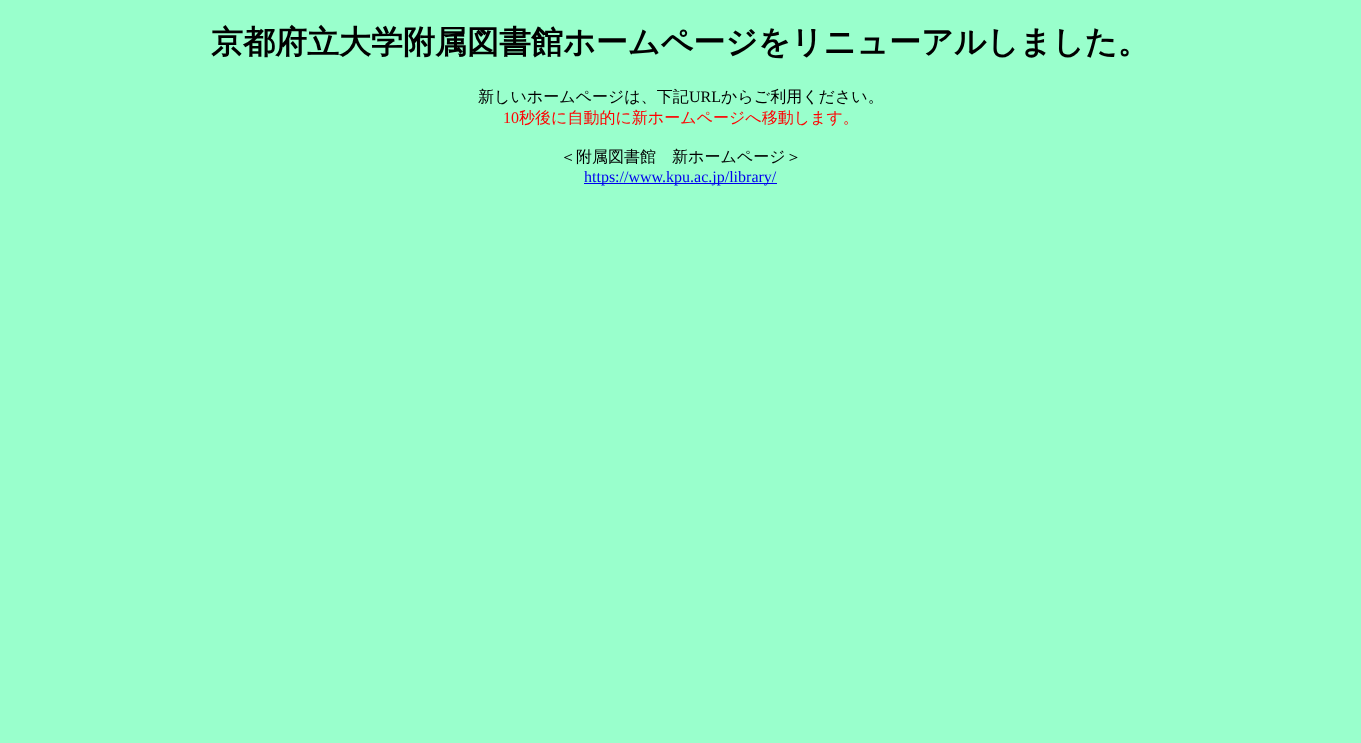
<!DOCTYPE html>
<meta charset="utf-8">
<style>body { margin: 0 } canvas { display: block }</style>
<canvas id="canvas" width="1361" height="743"></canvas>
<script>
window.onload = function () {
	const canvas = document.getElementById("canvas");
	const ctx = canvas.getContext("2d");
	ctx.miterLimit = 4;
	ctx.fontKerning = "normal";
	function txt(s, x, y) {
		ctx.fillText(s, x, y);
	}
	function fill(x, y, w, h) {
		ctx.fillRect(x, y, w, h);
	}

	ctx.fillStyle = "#99FFCC";
	fill(0, 0, 1361, 743);
	ctx.fillStyle = "#0000EE";
	fill(584, 183, 193, 1);
	ctx.font = "bold 32px WenQuanYi Zen Hei";
	ctx.fillStyle = "#000000";
	txt("京都府立大学附属図書館ホームページをリニューアルしました。", 211, 53);
	ctx.font = "500 16px WenQuanYi Zen Hei";
	txt("新しいホームページは、下記", 478, 102);
	ctx.font = "16px Liberation Serif";
	txt("URL", 689, 102);
	ctx.font = "500 16px WenQuanYi Zen Hei";
	txt("からご利用ください。", 721, 102);
	ctx.font = "16px Liberation Serif";
	ctx.fillStyle = "#FF0000";
	txt("10", 503, 123);
	ctx.font = "500 16px WenQuanYi Zen Hei";
	txt("秒後に自動的に新ホームページへ移動します。", 519, 123);
	ctx.fillStyle = "#000000";
	txt("＜附属図書館　新ホームページ＞", 560, 162);
	ctx.font = "16px Liberation Serif";
	ctx.fillStyle = "#0000EE";
	txt("https://www.kpu.ac.jp/library/", 584, 182);
};
</script>
